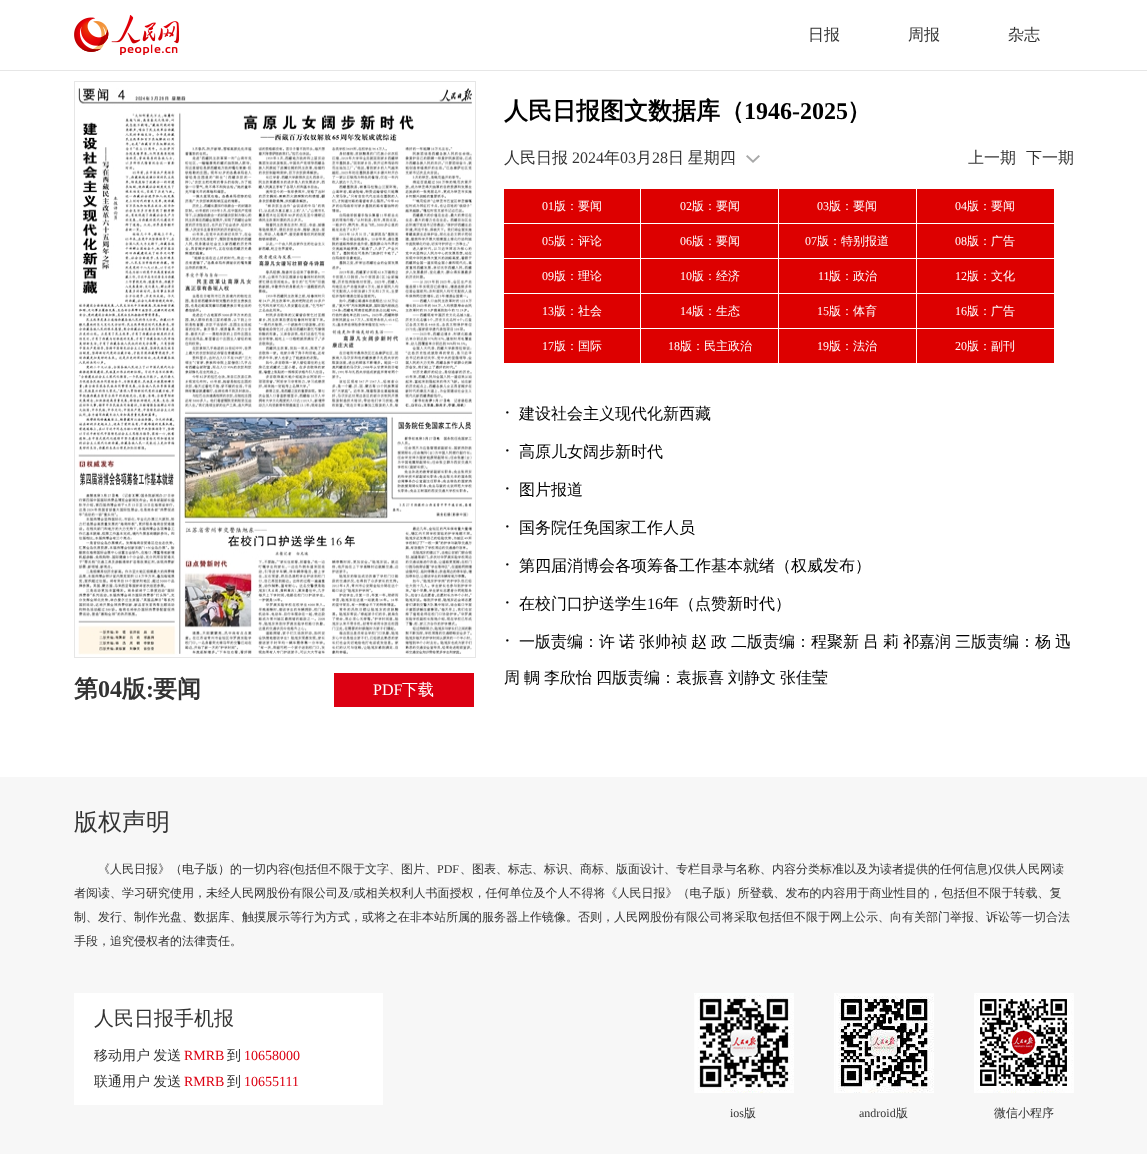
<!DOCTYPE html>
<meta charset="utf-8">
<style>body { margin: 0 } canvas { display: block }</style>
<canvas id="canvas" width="1147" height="1154"></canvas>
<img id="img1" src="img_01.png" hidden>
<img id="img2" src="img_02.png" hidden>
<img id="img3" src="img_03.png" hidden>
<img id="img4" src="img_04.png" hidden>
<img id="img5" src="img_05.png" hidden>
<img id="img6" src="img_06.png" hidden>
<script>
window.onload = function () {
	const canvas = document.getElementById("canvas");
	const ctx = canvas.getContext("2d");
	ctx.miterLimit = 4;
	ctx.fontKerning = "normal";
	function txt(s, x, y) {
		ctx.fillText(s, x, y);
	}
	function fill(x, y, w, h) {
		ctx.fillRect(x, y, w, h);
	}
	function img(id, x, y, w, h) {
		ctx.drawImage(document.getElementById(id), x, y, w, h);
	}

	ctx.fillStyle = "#FFFFFF";
	fill(0, 0, 1147, 1154);
	ctx.fillStyle = "#E6E6E6";
	fill(0, 70, 1147, 1);
	img("img1", 74, 15, 105, 40);
	img("img2", 746, 155, 14, 8);
	ctx.fillStyle = "#DD0000";
	fill(504, 189, 136, 34);
	fill(641, 189, 137, 34);
	fill(779, 189, 137, 34);
	fill(917, 189, 137, 34);
	fill(504, 224, 136, 34);
	fill(641, 224, 137, 34);
	fill(779, 224, 137, 34);
	fill(917, 224, 137, 34);
	fill(504, 259, 136, 34);
	fill(641, 259, 137, 34);
	fill(779, 259, 137, 34);
	fill(917, 259, 137, 34);
	fill(504, 294, 136, 34);
	fill(641, 294, 137, 34);
	fill(779, 294, 137, 34);
	fill(917, 294, 137, 34);
	fill(504, 329, 136, 34);
	fill(641, 329, 137, 34);
	fill(779, 329, 137, 34);
	fill(917, 329, 137, 34);
	ctx.strokeStyle = "#E6E6E6";
	ctx.strokeRect(74.5, 81.5, 401, 576);
	img("img3", 78, 88, 395, 567);
	ctx.fillStyle = "#DC0012";
	fill(334, 673, 140, 34);
	ctx.fillStyle = "#F7F7F7";
	fill(0, 777, 1147, 377);
	ctx.fillStyle = "#FFFFFF";
	fill(74, 993, 309, 112);
	img("img4", 694, 993, 100, 100);
	img("img5", 834, 993, 100, 100);
	img("img6", 974, 993, 100, 100);
	ctx.font = "500 16px WenQuanYi Zen Hei";
	ctx.fillStyle = "#333333";
	txt("日报", 808, 40);
	txt("周报", 908, 40);
	txt("杂志", 1008, 40);
	ctx.font = "bold 24px WenQuanYi Zen Hei";
	ctx.fillStyle = "#000000";
	txt("人民日报图文数据库（", 504, 119);
	ctx.font = "bold 24px Liberation Serif";
	txt("1946-2025", 744, 119);
	ctx.font = "bold 24px WenQuanYi Zen Hei";
	txt("）", 847, 119);
	ctx.font = "500 16px WenQuanYi Zen Hei";
	ctx.fillStyle = "#333333";
	txt("人民日报", 504, 163);
	ctx.font = "16px Liberation Serif";
	txt("2024", 572, 163);
	ctx.font = "500 16px WenQuanYi Zen Hei";
	txt("年", 604, 163);
	ctx.font = "16px Liberation Serif";
	txt("03", 620, 163);
	ctx.font = "500 16px WenQuanYi Zen Hei";
	txt("月", 636, 163);
	ctx.font = "16px Liberation Serif";
	txt("28", 652, 163);
	ctx.wordSpacing = "-1px";
	ctx.font = "500 16px WenQuanYi Zen Hei";
	txt("日 星期四", 668, 163);
	ctx.wordSpacing = "0px";
	txt("上一期", 968, 163);
	txt("下一期", 1026, 163);
	ctx.font = "12px Liberation Serif";
	ctx.fillStyle = "#FFFFFF";
	txt("01", 542, 210);
	ctx.font = "500 12px WenQuanYi Zen Hei";
	txt("版：要闻", 554, 210);
	ctx.font = "12px Liberation Serif";
	txt("02", 680, 210);
	ctx.font = "500 12px WenQuanYi Zen Hei";
	txt("版：要闻", 692, 210);
	ctx.font = "12px Liberation Serif";
	txt("03", 817, 210);
	ctx.font = "500 12px WenQuanYi Zen Hei";
	txt("版：要闻", 829, 210);
	ctx.font = "12px Liberation Serif";
	txt("04", 955, 210);
	ctx.font = "500 12px WenQuanYi Zen Hei";
	txt("版：要闻", 967, 210);
	ctx.font = "12px Liberation Serif";
	txt("05", 542, 245);
	ctx.font = "500 12px WenQuanYi Zen Hei";
	txt("版：评论", 554, 245);
	ctx.font = "12px Liberation Serif";
	txt("06", 680, 245);
	ctx.font = "500 12px WenQuanYi Zen Hei";
	txt("版：要闻", 692, 245);
	ctx.font = "12px Liberation Serif";
	txt("07", 805, 245);
	ctx.font = "500 12px WenQuanYi Zen Hei";
	txt("版：特别报道", 817, 245);
	ctx.font = "12px Liberation Serif";
	txt("08", 955, 245);
	ctx.font = "500 12px WenQuanYi Zen Hei";
	txt("版：广告", 967, 245);
	ctx.font = "12px Liberation Serif";
	txt("09", 542, 280);
	ctx.font = "500 12px WenQuanYi Zen Hei";
	txt("版：理论", 554, 280);
	ctx.font = "12px Liberation Serif";
	txt("10", 680, 280);
	ctx.font = "500 12px WenQuanYi Zen Hei";
	txt("版：经济", 692, 280);
	ctx.font = "12px Liberation Serif";
	txt("11", 818, 280);
	ctx.font = "500 12px WenQuanYi Zen Hei";
	txt("版：政治", 829, 280);
	ctx.font = "12px Liberation Serif";
	txt("12", 955, 280);
	ctx.font = "500 12px WenQuanYi Zen Hei";
	txt("版：文化", 967, 280);
	ctx.font = "12px Liberation Serif";
	txt("13", 542, 315);
	ctx.font = "500 12px WenQuanYi Zen Hei";
	txt("版：社会", 554, 315);
	ctx.font = "12px Liberation Serif";
	txt("14", 680, 315);
	ctx.font = "500 12px WenQuanYi Zen Hei";
	txt("版：生态", 692, 315);
	ctx.font = "12px Liberation Serif";
	txt("15", 817, 315);
	ctx.font = "500 12px WenQuanYi Zen Hei";
	txt("版：体育", 829, 315);
	ctx.font = "12px Liberation Serif";
	txt("16", 955, 315);
	ctx.font = "500 12px WenQuanYi Zen Hei";
	txt("版：广告", 967, 315);
	ctx.font = "12px Liberation Serif";
	txt("17", 542, 350);
	ctx.font = "500 12px WenQuanYi Zen Hei";
	txt("版：国际", 554, 350);
	ctx.font = "12px Liberation Serif";
	txt("18", 668, 350);
	ctx.font = "500 12px WenQuanYi Zen Hei";
	txt("版：民主政治", 680, 350);
	ctx.font = "12px Liberation Serif";
	txt("19", 817, 350);
	ctx.font = "500 12px WenQuanYi Zen Hei";
	txt("版：法治", 829, 350);
	ctx.font = "12px Liberation Serif";
	txt("20", 955, 350);
	ctx.font = "500 12px WenQuanYi Zen Hei";
	txt("版：副刊", 967, 350);
	ctx.font = "20px Liberation Serif";
	ctx.fillStyle = "#000000";
	txt("·", 504, 419);
	ctx.font = "500 16px WenQuanYi Zen Hei";
	txt("建设社会主义现代化新西藏", 519, 419);
	ctx.font = "20px Liberation Serif";
	txt("·", 504, 457);
	ctx.font = "500 16px WenQuanYi Zen Hei";
	txt("高原儿女阔步新时代", 519, 457);
	ctx.font = "20px Liberation Serif";
	txt("·", 504, 495);
	ctx.font = "500 16px WenQuanYi Zen Hei";
	txt("图片报道", 519, 495);
	ctx.font = "20px Liberation Serif";
	txt("·", 504, 533);
	ctx.font = "500 16px WenQuanYi Zen Hei";
	txt("国务院任免国家工作人员", 519, 533);
	ctx.font = "20px Liberation Serif";
	txt("·", 504, 571);
	ctx.font = "500 16px WenQuanYi Zen Hei";
	txt("第四届消博会各项筹备工作基本就绪（权威发布）", 519, 571);
	ctx.font = "20px Liberation Serif";
	txt("·", 504, 609);
	ctx.font = "500 16px WenQuanYi Zen Hei";
	txt("在校门口护送学生", 519, 609);
	ctx.font = "16px Liberation Serif";
	txt("16", 647, 609);
	ctx.font = "500 16px WenQuanYi Zen Hei";
	txt("年（点赞新时代）", 663, 609);
	ctx.font = "20px Liberation Serif";
	txt("·", 504, 647);
	ctx.font = "500 16px WenQuanYi Zen Hei";
	txt("一版责编：许", 519, 647);
	txt("诺", 619, 647);
	txt("张帅祯", 639, 647);
	txt("赵", 691, 647);
	txt("政", 711, 647);
	txt("二版责编：程聚新", 731, 647);
	txt("吕", 863, 647);
	txt("莉", 883, 647);
	txt("祁嘉润", 903, 647);
	txt("三版责编：杨", 955, 647);
	txt("迅", 1055, 647);
	txt("周", 504, 683);
	txt("輖", 524, 683);
	txt("李欣怡", 544, 683);
	txt("四版责编：袁振喜", 596, 683);
	txt("刘静文", 728, 683);
	txt("张佳莹", 780, 683);
	ctx.font = "bold 24px WenQuanYi Zen Hei";
	ctx.fillStyle = "#333333";
	txt("第", 74, 697);
	ctx.font = "bold 24px Liberation Serif";
	txt("04", 98, 697);
	ctx.font = "bold 24px WenQuanYi Zen Hei";
	txt("版", 122, 697);
	ctx.font = "bold 24px Liberation Serif";
	txt(":", 146, 697);
	ctx.font = "bold 24px WenQuanYi Zen Hei";
	txt("要闻", 153, 697);
	ctx.font = "16px Liberation Serif";
	ctx.fillStyle = "#FFFFFF";
	txt("PDF", 373, 695);
	ctx.font = "500 16px WenQuanYi Zen Hei";
	txt("下载", 402, 695);
	ctx.font = "500 24px WenQuanYi Zen Hei";
	ctx.fillStyle = "#333333";
	txt("版权声明", 74, 830);
	ctx.font = "500 12px WenQuanYi Zen Hei";
	txt("《人民日报》（电子版）的一切内容", 98, 873);
	ctx.font = "12px Liberation Serif";
	txt("(", 290, 873);
	ctx.font = "500 12px WenQuanYi Zen Hei";
	txt("包括但不限于文字、图片、", 293, 873);
	ctx.font = "12px Liberation Serif";
	txt("PDF", 437, 873);
	ctx.font = "500 12px WenQuanYi Zen Hei";
	txt("、图表、标志、标识、商标、版面设计、专栏目录与名称、内容分类标准以及为读者提供的任何信息", 460, 873);
	ctx.font = "12px Liberation Serif";
	txt(")", 988, 873);
	ctx.font = "500 12px WenQuanYi Zen Hei";
	txt("仅供人民网读", 992, 873);
	txt("者阅读、学习研究使用，未经人民网股份有限公司及 或相关权利人书面授权，任何单位及个人不得将《人民日报》（电子版）所登载、发布的内容用于商业性目的，包括但不限于转载、复", 74, 897);
	ctx.font = "12px Liberation Serif";
	txt("/", 350, 897);
	ctx.font = "500 12px WenQuanYi Zen Hei";
	txt("制、发行、制作光盘、数据库、触摸展示等行为方式，或将之在非本站所属的服务器上作镜像。否则，人民网股份有限公司将采取包括但不限于网上公示、向有关部门举报、诉讼等一切合法", 74, 921);
	txt("手段，追究侵权者的法律责任。", 74, 945);
	ctx.font = "500 20px WenQuanYi Zen Hei";
	txt("人民日报手机报", 94, 1025);
	ctx.wordSpacing = "-1px";
	ctx.font = "500 14px WenQuanYi Zen Hei";
	txt("移动用户 发送", 94, 1060);
	ctx.wordSpacing = "0px";
	ctx.font = "14px Liberation Serif";
	ctx.fillStyle = "#DC0012";
	txt("RMRB", 184, 1060);
	ctx.font = "500 14px WenQuanYi Zen Hei";
	ctx.fillStyle = "#333333";
	txt("到", 227, 1060);
	ctx.font = "14px Liberation Serif";
	ctx.fillStyle = "#DC0012";
	txt("10658000", 244, 1060);
	ctx.wordSpacing = "-1px";
	ctx.font = "500 14px WenQuanYi Zen Hei";
	ctx.fillStyle = "#333333";
	txt("联通用户 发送", 94, 1086);
	ctx.wordSpacing = "0px";
	ctx.font = "14px Liberation Serif";
	ctx.fillStyle = "#DC0012";
	txt("RMRB", 184, 1086);
	ctx.font = "500 14px WenQuanYi Zen Hei";
	ctx.fillStyle = "#333333";
	txt("到", 227, 1086);
	ctx.font = "14px Liberation Serif";
	ctx.fillStyle = "#DC0012";
	txt("10655111", 244, 1086);
	ctx.font = "12px Liberation Serif";
	ctx.fillStyle = "#333333";
	txt("ios", 730, 1117);
	ctx.font = "500 12px WenQuanYi Zen Hei";
	txt("版", 744, 1117);
	ctx.font = "12px Liberation Serif";
	txt("android", 859, 1117);
	ctx.font = "500 12px WenQuanYi Zen Hei";
	txt("版", 896, 1117);
	txt("微信小程序", 994, 1117);
};
</script>
